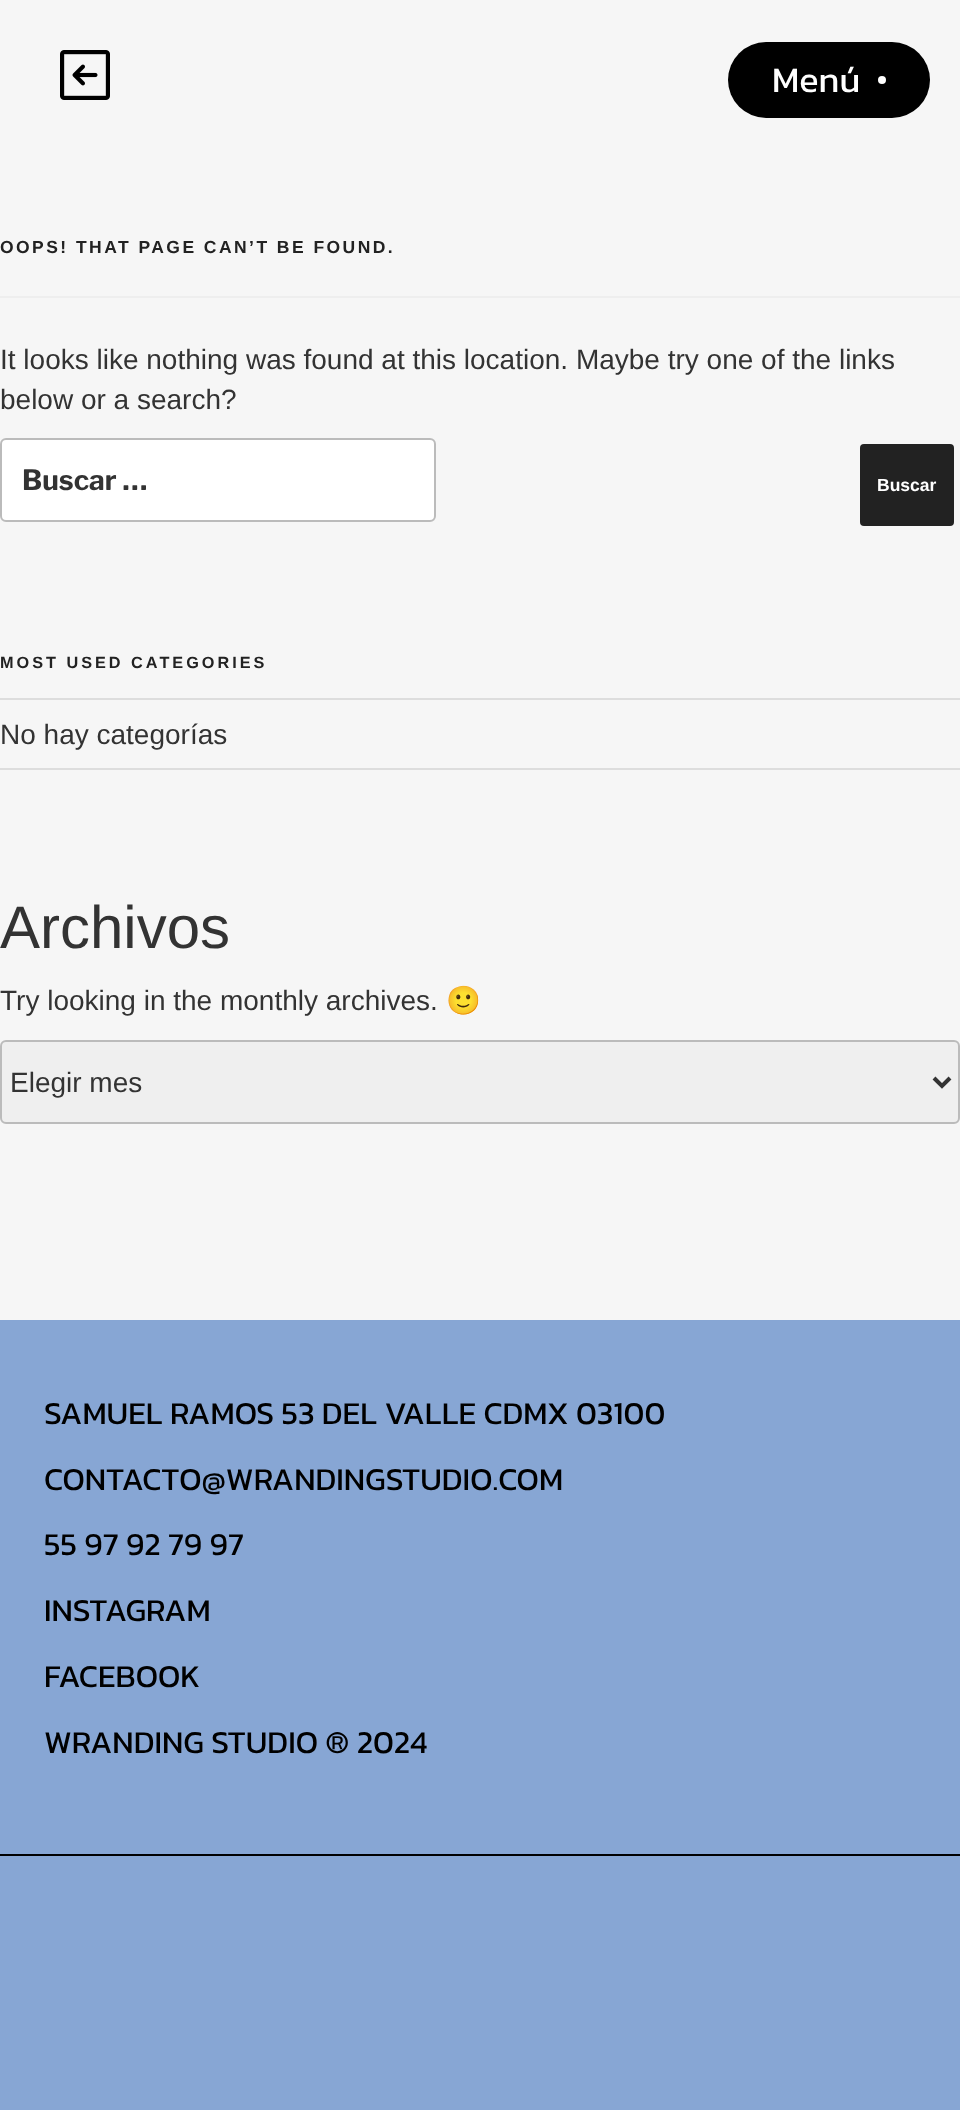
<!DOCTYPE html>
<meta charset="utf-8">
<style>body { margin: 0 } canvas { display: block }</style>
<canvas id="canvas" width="960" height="2110"></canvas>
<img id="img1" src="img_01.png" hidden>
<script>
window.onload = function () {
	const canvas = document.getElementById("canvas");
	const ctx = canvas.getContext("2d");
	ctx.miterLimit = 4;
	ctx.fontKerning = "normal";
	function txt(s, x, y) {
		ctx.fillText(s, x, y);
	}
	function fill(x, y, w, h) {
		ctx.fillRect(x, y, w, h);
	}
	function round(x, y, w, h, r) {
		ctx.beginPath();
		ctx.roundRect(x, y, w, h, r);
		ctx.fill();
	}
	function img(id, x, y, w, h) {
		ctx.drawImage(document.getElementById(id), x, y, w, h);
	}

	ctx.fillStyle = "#F6F6F6";
	fill(0, 0, 960, 2110);
	img("img1", 60, 50, 50, 50);
	ctx.fillStyle = "#000000";
	round(728, 42, 202, 76, 38);
	ctx.fillStyle = "#FFFFFF";
	ctx.beginPath();
	ctx.arc(882, 80, 4, 0, Math.PI * 2);
	ctx.fill();
	ctx.fillStyle = "#EEEEEE";
	fill(0, 296, 960, 2);
	ctx.fillStyle = "#FFFFFF";
	ctx.beginPath();
	ctx.roundRect(1, 439, 434, 82, 5);
	ctx.fill();
	ctx.strokeStyle = "#BBBBBB";
	ctx.lineWidth = 2;
	ctx.stroke();
	ctx.fillStyle = "#222222";
	round(860, 444, 94, 82, 4);
	ctx.fillStyle = "#DDDDDD";
	fill(0, 698, 960, 2);
	fill(0, 768, 960, 2);
	ctx.fillStyle = "#EFEFEF";
	ctx.beginPath();
	ctx.roundRect(1, 1041, 958, 82, 5);
	ctx.fill();
	ctx.stroke();
	ctx.beginPath();
	ctx.moveTo(934, 1078);
	ctx.lineTo(942, 1086);
	ctx.lineTo(950, 1078);
	ctx.strokeStyle = "#333333";
	ctx.lineWidth = 4;
	ctx.stroke();
	ctx.fillStyle = "#87A6D4";
	fill(0, 1320, 960, 790);
	ctx.fillStyle = "#000000";
	fill(0, 1854, 960, 2);
	ctx.font = "36px Kanit";
	ctx.fillStyle = "#FFFFFF";
	txt("Menú", 772, 92);
	ctx.letterSpacing = "2.45px";
	ctx.font = "bold 17.5px Liberation Sans";
	ctx.fillStyle = "#222222";
	txt("OOPS! THAT PAGE CAN’T BE FOUND.", 0, 253);
	ctx.letterSpacing = "0px";
	ctx.font = "28px Liberation Sans";
	ctx.fillStyle = "#333333";
	txt("It looks like nothing was found at this location. Maybe try one of the links", 0, 369);
	txt("below or a search?", 0, 409);
	ctx.font = "bold 28px Libre Franklin";
	txt("Buscar …", 22, 490);
	ctx.font = "bold 17.5px Liberation Sans";
	ctx.fillStyle = "#FFFFFF";
	txt("Buscar", 877, 491);
	ctx.letterSpacing = "3px";
	ctx.font = "bold 16.25px Liberation Sans";
	ctx.fillStyle = "#222222";
	txt("MOST USED CATEGORIES", 0, 668);
	ctx.letterSpacing = "0px";
	ctx.font = "28px Liberation Sans";
	ctx.fillStyle = "#333333";
	txt("No hay categorías", 0, 744);
	ctx.font = "60px Liberation Sans";
	txt("Archivos", 0, 948);
	ctx.font = "28px Liberation Sans";
	txt("Try looking in the monthly archives.", 0, 1010);
	ctx.font = "28px Noto Color Emoji";
	txt("🙂", 446, 1010);
	ctx.font = "28px Liberation Sans";
	txt("Elegir mes", 10, 1092);
	ctx.font = "32px Kanit";
	ctx.fillStyle = "#000000";
	txt("SAMUEL RAMOS 53 DEL VALLE CDMX 03100", 44, 1424);
	txt("CONTACTO@WRANDINGSTUDIO.COM", 44, 1490);
	txt("55 97 92 79 97", 44, 1555);
	txt("INSTAGRAM", 44, 1621);
	txt("FACEBOOK", 44, 1687);
	txt("WRANDING STUDIO ® 2024", 44, 1753);
};
</script>
